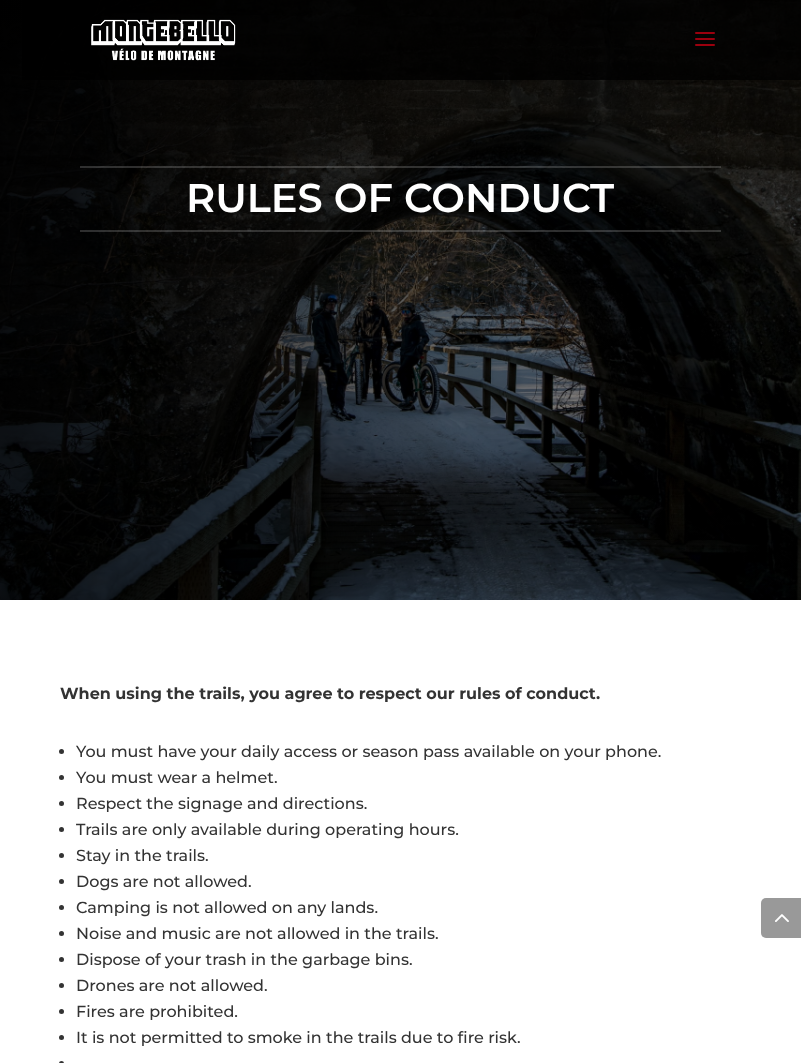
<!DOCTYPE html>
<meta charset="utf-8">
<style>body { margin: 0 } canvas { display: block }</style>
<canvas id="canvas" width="801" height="1063"></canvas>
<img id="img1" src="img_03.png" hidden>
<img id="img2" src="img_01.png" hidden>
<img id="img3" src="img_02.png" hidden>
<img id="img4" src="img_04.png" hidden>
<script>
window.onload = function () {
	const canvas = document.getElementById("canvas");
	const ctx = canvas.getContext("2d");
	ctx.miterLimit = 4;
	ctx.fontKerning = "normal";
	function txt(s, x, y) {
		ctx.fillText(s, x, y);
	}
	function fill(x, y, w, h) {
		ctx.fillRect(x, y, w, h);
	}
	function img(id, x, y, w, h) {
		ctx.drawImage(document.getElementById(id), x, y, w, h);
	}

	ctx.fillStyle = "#FFFFFF";
	fill(0, 0, 801, 1063);
	img("img1", 0, 0, 801, 600);
	ctx.fillStyle = "rgba(0, 0, 0, 0.75)";
	fill(22, 0, 779, 80);
	img("img2", 91, 19, 145, 42);
	img("img3", 695, 32, 20, 14);
	ctx.fillStyle = "rgba(255, 255, 255, 0.18)";
	fill(80, 166, 641, 2);
	fill(80, 230, 641, 2);
	ctx.fillStyle = "#333333";
	ctx.beginPath();
	ctx.arc(61.5, 751.5, 2.5, 0, Math.PI * 2);
	ctx.fill();
	ctx.beginPath();
	ctx.arc(61.5, 777.5, 2.5, 0, Math.PI * 2);
	ctx.fill();
	ctx.beginPath();
	ctx.arc(61.5, 803.5, 2.5, 0, Math.PI * 2);
	ctx.fill();
	ctx.beginPath();
	ctx.arc(61.5, 829.5, 2.5, 0, Math.PI * 2);
	ctx.fill();
	ctx.beginPath();
	ctx.arc(61.5, 855.5, 2.5, 0, Math.PI * 2);
	ctx.fill();
	ctx.beginPath();
	ctx.arc(61.5, 881.5, 2.5, 0, Math.PI * 2);
	ctx.fill();
	ctx.beginPath();
	ctx.arc(61.5, 907.5, 2.5, 0, Math.PI * 2);
	ctx.fill();
	ctx.beginPath();
	ctx.arc(61.5, 933.5, 2.5, 0, Math.PI * 2);
	ctx.fill();
	ctx.beginPath();
	ctx.arc(61.5, 959.5, 2.5, 0, Math.PI * 2);
	ctx.fill();
	ctx.beginPath();
	ctx.arc(61.5, 985.5, 2.5, 0, Math.PI * 2);
	ctx.fill();
	ctx.beginPath();
	ctx.arc(61.5, 1011.5, 2.5, 0, Math.PI * 2);
	ctx.fill();
	ctx.beginPath();
	ctx.arc(61.5, 1037.5, 2.5, 0, Math.PI * 2);
	ctx.fill();
	ctx.beginPath();
	ctx.arc(61.5, 1063.5, 2.5, 0, Math.PI * 2);
	ctx.fill();
	ctx.fillStyle = "#999999";
	ctx.beginPath();
	ctx.roundRect(761, 898, 40, 40, [5, 0, 0, 5]);
	ctx.fill();
	img("img4", 775, 914, 14, 8);
	ctx.font = "600 40px Montserrat";
	ctx.fillStyle = "#FFFFFF";
	txt("RULES OF CONDUCT", 186, 212);
	ctx.font = "bold 16px Montserrat";
	ctx.fillStyle = "#333333";
	txt("When using the trails, you agree to respect our rules of conduct.", 60, 699);
	ctx.font = "500 16px Montserrat";
	txt("You must have your daily access or season pass available on your phone.", 76, 757);
	txt("You must wear a helmet.", 76, 783);
	txt("Respect the signage and directions.", 76, 809);
	txt("Trails are only available during operating hours.", 76, 835);
	txt("Stay in the trails.", 76, 861);
	txt("Dogs are not allowed.", 76, 887);
	txt("Camping is not allowed on any lands.", 76, 913);
	txt("Noise and music are not allowed in the trails.", 76, 939);
	txt("Dispose of your trash in the garbage bins.", 76, 965);
	txt("Drones are not allowed.", 76, 991);
	txt("Fires are prohibited.", 76, 1017);
	txt("It is not permitted to smoke in the trails due to fire risk.", 76, 1043);
};
</script>
